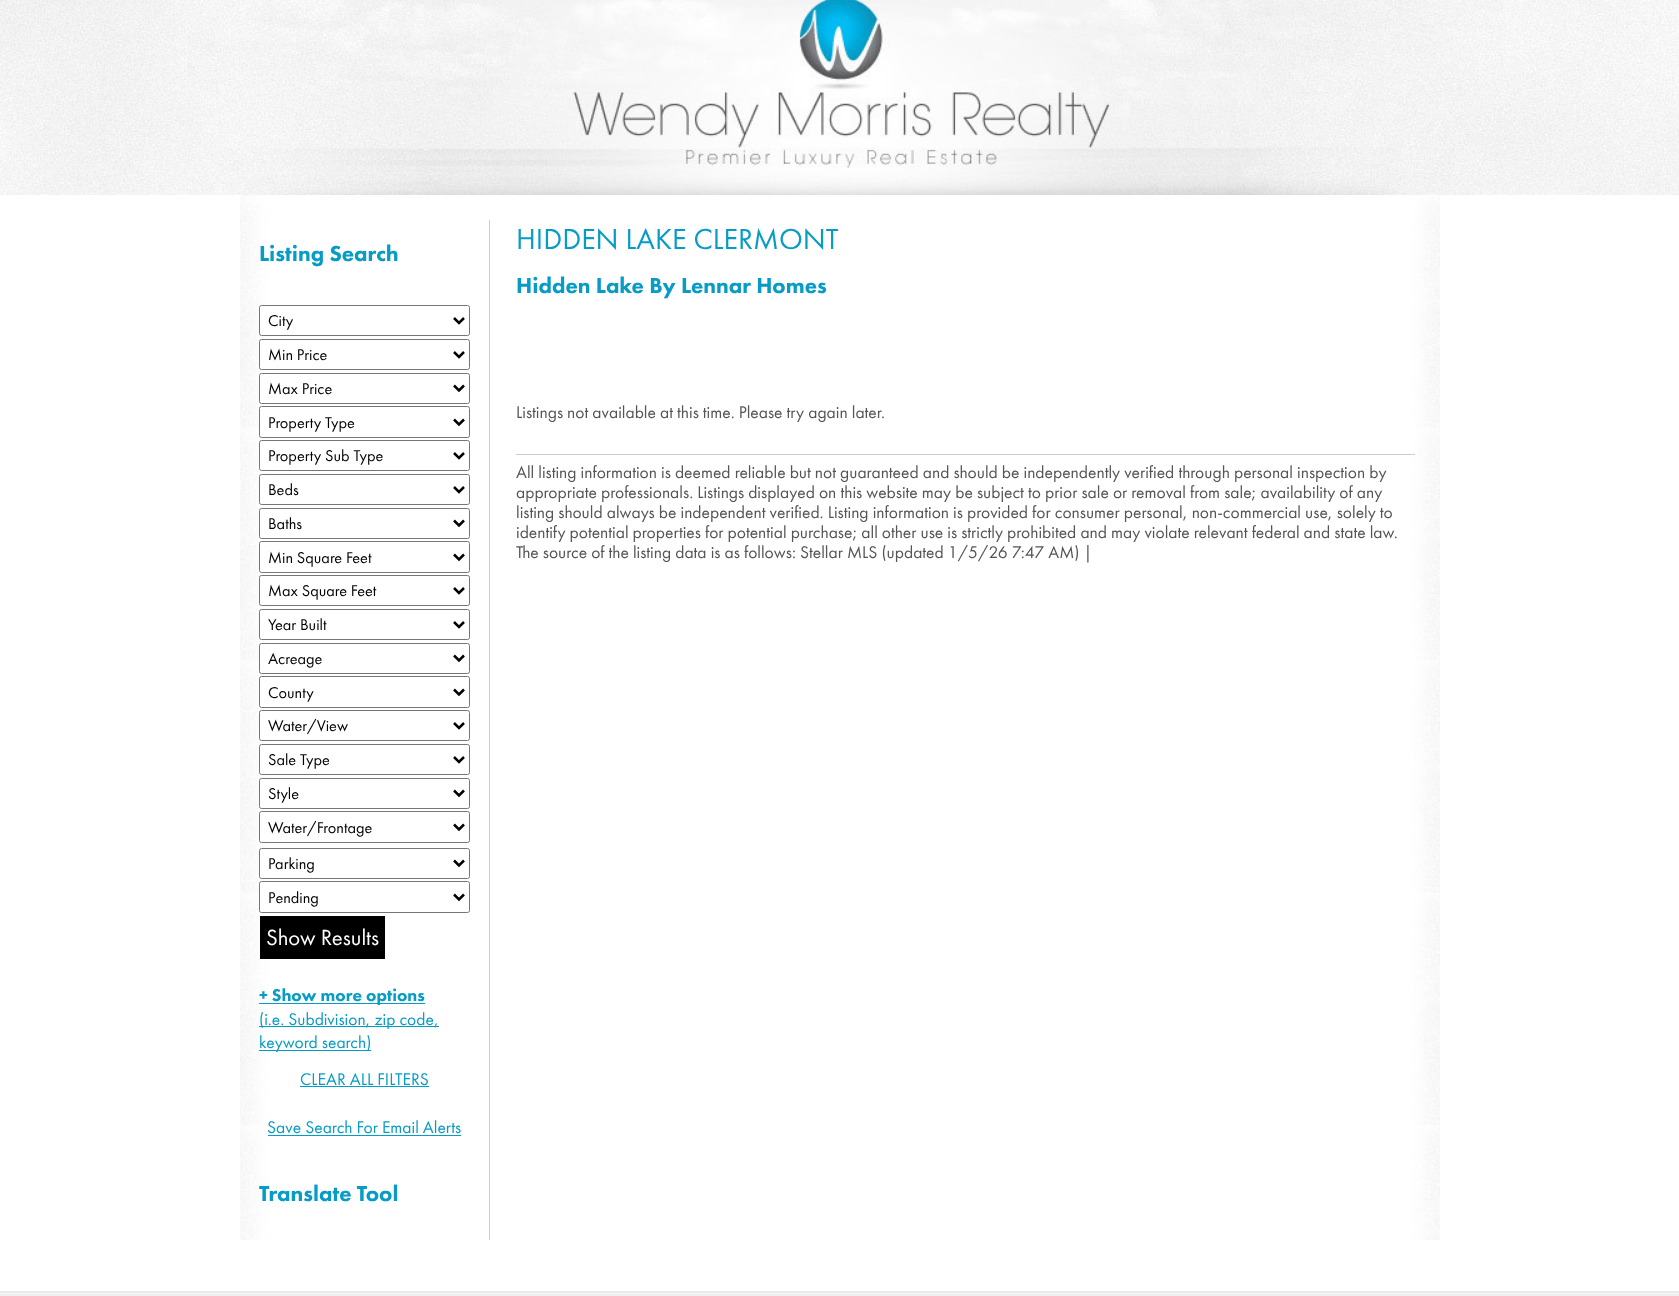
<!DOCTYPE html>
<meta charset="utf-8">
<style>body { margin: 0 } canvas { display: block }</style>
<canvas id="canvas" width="1679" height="1296"></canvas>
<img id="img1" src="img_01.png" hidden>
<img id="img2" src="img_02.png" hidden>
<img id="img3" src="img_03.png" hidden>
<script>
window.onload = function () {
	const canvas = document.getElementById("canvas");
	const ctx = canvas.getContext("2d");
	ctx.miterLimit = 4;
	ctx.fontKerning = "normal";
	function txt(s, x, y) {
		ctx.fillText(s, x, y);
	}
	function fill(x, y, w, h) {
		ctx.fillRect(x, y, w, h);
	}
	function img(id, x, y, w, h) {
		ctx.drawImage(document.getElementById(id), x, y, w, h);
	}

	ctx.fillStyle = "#FFFFFF";
	fill(0, 0, 1679, 1296);
	img("img1", 0, 0, 1679, 195);
	img("img2", 240, 195, 1200, 1045);
	ctx.fillStyle = "#CCCCCC";
	fill(489, 220, 1, 1020);
	ctx.fillStyle = "#FFFFFF";
	ctx.beginPath();
	ctx.roundRect(259.5, 305.5, 210, 30, 2);
	ctx.fill();
	ctx.strokeStyle = "#767676";
	ctx.stroke();
	ctx.beginPath();
	ctx.moveTo(454, 318);
	ctx.lineTo(459, 323);
	ctx.lineTo(464, 318);
	ctx.strokeStyle = "#000000";
	ctx.lineWidth = 2.5;
	ctx.stroke();
	ctx.beginPath();
	ctx.roundRect(259.5, 339.5, 210, 30, 2);
	ctx.fill();
	ctx.strokeStyle = "#767676";
	ctx.lineWidth = 1;
	ctx.stroke();
	ctx.beginPath();
	ctx.moveTo(454, 352);
	ctx.lineTo(459, 357);
	ctx.lineTo(464, 352);
	ctx.strokeStyle = "#000000";
	ctx.lineWidth = 2.5;
	ctx.stroke();
	ctx.beginPath();
	ctx.roundRect(259.5, 373.5, 210, 30, 2);
	ctx.fill();
	ctx.strokeStyle = "#767676";
	ctx.lineWidth = 1;
	ctx.stroke();
	ctx.beginPath();
	ctx.moveTo(454, 385.5);
	ctx.lineTo(459, 390.5);
	ctx.lineTo(464, 385.5);
	ctx.strokeStyle = "#000000";
	ctx.lineWidth = 2.5;
	ctx.stroke();
	ctx.beginPath();
	ctx.roundRect(259.5, 406.5, 210, 31, 2);
	ctx.fill();
	ctx.strokeStyle = "#767676";
	ctx.lineWidth = 1;
	ctx.stroke();
	ctx.beginPath();
	ctx.moveTo(454, 419.5);
	ctx.lineTo(459, 424.5);
	ctx.lineTo(464, 419.5);
	ctx.strokeStyle = "#000000";
	ctx.lineWidth = 2.5;
	ctx.stroke();
	ctx.beginPath();
	ctx.roundRect(259.5, 440.5, 210, 30, 2);
	ctx.fill();
	ctx.strokeStyle = "#767676";
	ctx.lineWidth = 1;
	ctx.stroke();
	ctx.beginPath();
	ctx.moveTo(454, 453);
	ctx.lineTo(459, 458);
	ctx.lineTo(464, 453);
	ctx.strokeStyle = "#000000";
	ctx.lineWidth = 2.5;
	ctx.stroke();
	ctx.beginPath();
	ctx.roundRect(259.5, 474.5, 210, 30, 2);
	ctx.fill();
	ctx.strokeStyle = "#767676";
	ctx.lineWidth = 1;
	ctx.stroke();
	ctx.beginPath();
	ctx.moveTo(454, 487);
	ctx.lineTo(459, 492);
	ctx.lineTo(464, 487);
	ctx.strokeStyle = "#000000";
	ctx.lineWidth = 2.5;
	ctx.stroke();
	ctx.beginPath();
	ctx.roundRect(259.5, 508.5, 210, 30, 2);
	ctx.fill();
	ctx.strokeStyle = "#767676";
	ctx.lineWidth = 1;
	ctx.stroke();
	ctx.beginPath();
	ctx.moveTo(454, 520.5);
	ctx.lineTo(459, 525.5);
	ctx.lineTo(464, 520.5);
	ctx.strokeStyle = "#000000";
	ctx.lineWidth = 2.5;
	ctx.stroke();
	ctx.beginPath();
	ctx.roundRect(259.5, 541.5, 210, 31, 2);
	ctx.fill();
	ctx.strokeStyle = "#767676";
	ctx.lineWidth = 1;
	ctx.stroke();
	ctx.beginPath();
	ctx.moveTo(454, 554.5);
	ctx.lineTo(459, 559.5);
	ctx.lineTo(464, 554.5);
	ctx.strokeStyle = "#000000";
	ctx.lineWidth = 2.5;
	ctx.stroke();
	ctx.beginPath();
	ctx.roundRect(259.5, 575.5, 210, 30, 2);
	ctx.fill();
	ctx.strokeStyle = "#767676";
	ctx.lineWidth = 1;
	ctx.stroke();
	ctx.beginPath();
	ctx.moveTo(454, 588);
	ctx.lineTo(459, 593);
	ctx.lineTo(464, 588);
	ctx.strokeStyle = "#000000";
	ctx.lineWidth = 2.5;
	ctx.stroke();
	ctx.beginPath();
	ctx.roundRect(259.5, 609.5, 210, 30, 2);
	ctx.fill();
	ctx.strokeStyle = "#767676";
	ctx.lineWidth = 1;
	ctx.stroke();
	ctx.beginPath();
	ctx.moveTo(454, 622);
	ctx.lineTo(459, 627);
	ctx.lineTo(464, 622);
	ctx.strokeStyle = "#000000";
	ctx.lineWidth = 2.5;
	ctx.stroke();
	ctx.beginPath();
	ctx.roundRect(259.5, 643.5, 210, 30, 2);
	ctx.fill();
	ctx.strokeStyle = "#767676";
	ctx.lineWidth = 1;
	ctx.stroke();
	ctx.beginPath();
	ctx.moveTo(454, 655.5);
	ctx.lineTo(459, 660.5);
	ctx.lineTo(464, 655.5);
	ctx.strokeStyle = "#000000";
	ctx.lineWidth = 2.5;
	ctx.stroke();
	ctx.beginPath();
	ctx.roundRect(259.5, 676.5, 210, 31, 2);
	ctx.fill();
	ctx.strokeStyle = "#767676";
	ctx.lineWidth = 1;
	ctx.stroke();
	ctx.beginPath();
	ctx.moveTo(454, 689.5);
	ctx.lineTo(459, 694.5);
	ctx.lineTo(464, 689.5);
	ctx.strokeStyle = "#000000";
	ctx.lineWidth = 2.5;
	ctx.stroke();
	ctx.beginPath();
	ctx.roundRect(259.5, 710.5, 210, 30, 2);
	ctx.fill();
	ctx.strokeStyle = "#767676";
	ctx.lineWidth = 1;
	ctx.stroke();
	ctx.beginPath();
	ctx.moveTo(454, 723);
	ctx.lineTo(459, 728);
	ctx.lineTo(464, 723);
	ctx.strokeStyle = "#000000";
	ctx.lineWidth = 2.5;
	ctx.stroke();
	ctx.beginPath();
	ctx.roundRect(259.5, 744.5, 210, 30, 2);
	ctx.fill();
	ctx.strokeStyle = "#767676";
	ctx.lineWidth = 1;
	ctx.stroke();
	ctx.beginPath();
	ctx.moveTo(454, 757);
	ctx.lineTo(459, 762);
	ctx.lineTo(464, 757);
	ctx.strokeStyle = "#000000";
	ctx.lineWidth = 2.5;
	ctx.stroke();
	ctx.beginPath();
	ctx.roundRect(259.5, 778.5, 210, 30, 2);
	ctx.fill();
	ctx.strokeStyle = "#767676";
	ctx.lineWidth = 1;
	ctx.stroke();
	ctx.beginPath();
	ctx.moveTo(454, 790.5);
	ctx.lineTo(459, 795.5);
	ctx.lineTo(464, 790.5);
	ctx.strokeStyle = "#000000";
	ctx.lineWidth = 2.5;
	ctx.stroke();
	ctx.beginPath();
	ctx.roundRect(259.5, 811.5, 210, 31, 2);
	ctx.fill();
	ctx.strokeStyle = "#767676";
	ctx.lineWidth = 1;
	ctx.stroke();
	ctx.beginPath();
	ctx.moveTo(454, 824.5);
	ctx.lineTo(459, 829.5);
	ctx.lineTo(464, 824.5);
	ctx.strokeStyle = "#000000";
	ctx.lineWidth = 2.5;
	ctx.stroke();
	ctx.beginPath();
	ctx.roundRect(259.5, 848.5, 210, 30, 2);
	ctx.fill();
	ctx.strokeStyle = "#767676";
	ctx.lineWidth = 1;
	ctx.stroke();
	ctx.beginPath();
	ctx.moveTo(454, 860.5);
	ctx.lineTo(459, 865.5);
	ctx.lineTo(464, 860.5);
	ctx.strokeStyle = "#000000";
	ctx.lineWidth = 2.5;
	ctx.stroke();
	ctx.beginPath();
	ctx.roundRect(259.5, 881.5, 210, 31, 2);
	ctx.fill();
	ctx.strokeStyle = "#767676";
	ctx.lineWidth = 1;
	ctx.stroke();
	ctx.beginPath();
	ctx.moveTo(454, 894.5);
	ctx.lineTo(459, 899.5);
	ctx.lineTo(464, 894.5);
	ctx.strokeStyle = "#000000";
	ctx.lineWidth = 2.5;
	ctx.stroke();
	ctx.fillStyle = "#000000";
	ctx.beginPath();
	ctx.rect(259.5, 915.5, 126, 44);
	ctx.fill();
	ctx.strokeStyle = "#FFFFFF";
	ctx.lineWidth = 1;
	ctx.stroke();
	ctx.fillStyle = "#079CC5";
	fill(259, 1003, 166, 1);
	fill(259, 1026, 180, 1);
	fill(259, 1050, 112, 1);
	fill(300, 1086, 129, 1);
	fill(268, 1135, 193, 1);
	ctx.fillStyle = "#CCCCCC";
	fill(516, 454, 899, 1);
	img("img3", 0, 1291, 1679, 5);
	ctx.font = "900 22.5px Futura PT";
	ctx.fillStyle = "#079CC5";
	txt("Listing Search", 259, 261);
	ctx.font = "16.25px Futura PT";
	ctx.fillStyle = "#000000";
	txt("City", 268, 326);
	txt("Min Price", 268, 360);
	txt("Max Price", 268, 394);
	txt("Property Type", 268, 428);
	txt("Property Sub Type", 268, 461);
	txt("Beds", 268, 495);
	txt("Baths", 268, 529);
	txt("Min Square Feet", 268, 563);
	txt("Max Square Feet", 268, 596);
	txt("Year Built", 268, 630);
	txt("Acreage", 268, 664);
	txt("County", 268, 698);
	txt("Water/View", 268, 731);
	txt("Sale Type", 268, 765);
	txt("Style", 268, 799);
	txt("Water/Frontage", 268, 833);
	txt("Parking", 268, 869);
	txt("Pending", 268, 903);
	ctx.font = "22.75px Futura PT";
	ctx.fillStyle = "#FFFFFF";
	txt("Show Results", 266, 945);
	ctx.font = "900 17.5px Futura PT";
	ctx.fillStyle = "#079CC5";
	txt("+ Show more options", 259, 1001);
	ctx.font = "17.5px Futura PT";
	txt("(i.e. Subdivision, zip code,", 259, 1025);
	txt("keyword search)", 259, 1048);
	txt("CLEAR ALL FILTERS", 300, 1085);
	txt("Save Search For Email Alerts", 267, 1133);
	ctx.font = "900 22.5px Futura PT";
	txt("Translate Tool", 259, 1201);
	ctx.font = "30px Futura PT";
	txt("HIDDEN LAKE CLERMONT", 516, 249);
	ctx.font = "900 22.5px Futura PT";
	txt("Hidden Lake By Lennar Homes", 516, 293);
	ctx.font = "17.5px Futura PT";
	ctx.fillStyle = "#555555";
	txt("Listings not available at this time. Please try again later.", 516, 418);
	txt("All listing information is deemed reliable but not guaranteed and should be independently verified through personal inspection by", 516, 478);
	txt("appropriate professionals. Listings displayed on this website may be subject to prior sale or removal from sale; availability of any", 516, 498);
	txt("listing should always be independent verified. Listing information is provided for consumer personal, non-commercial use, solely to", 516, 518);
	txt("identify potential properties for potential purchase; all other use is strictly prohibited and may violate relevant federal and state law.", 516, 538);
	txt("The source of the listing data is as follows: Stellar MLS (updated 1/5/26 7:47 AM) |", 516, 558);
};
</script>
